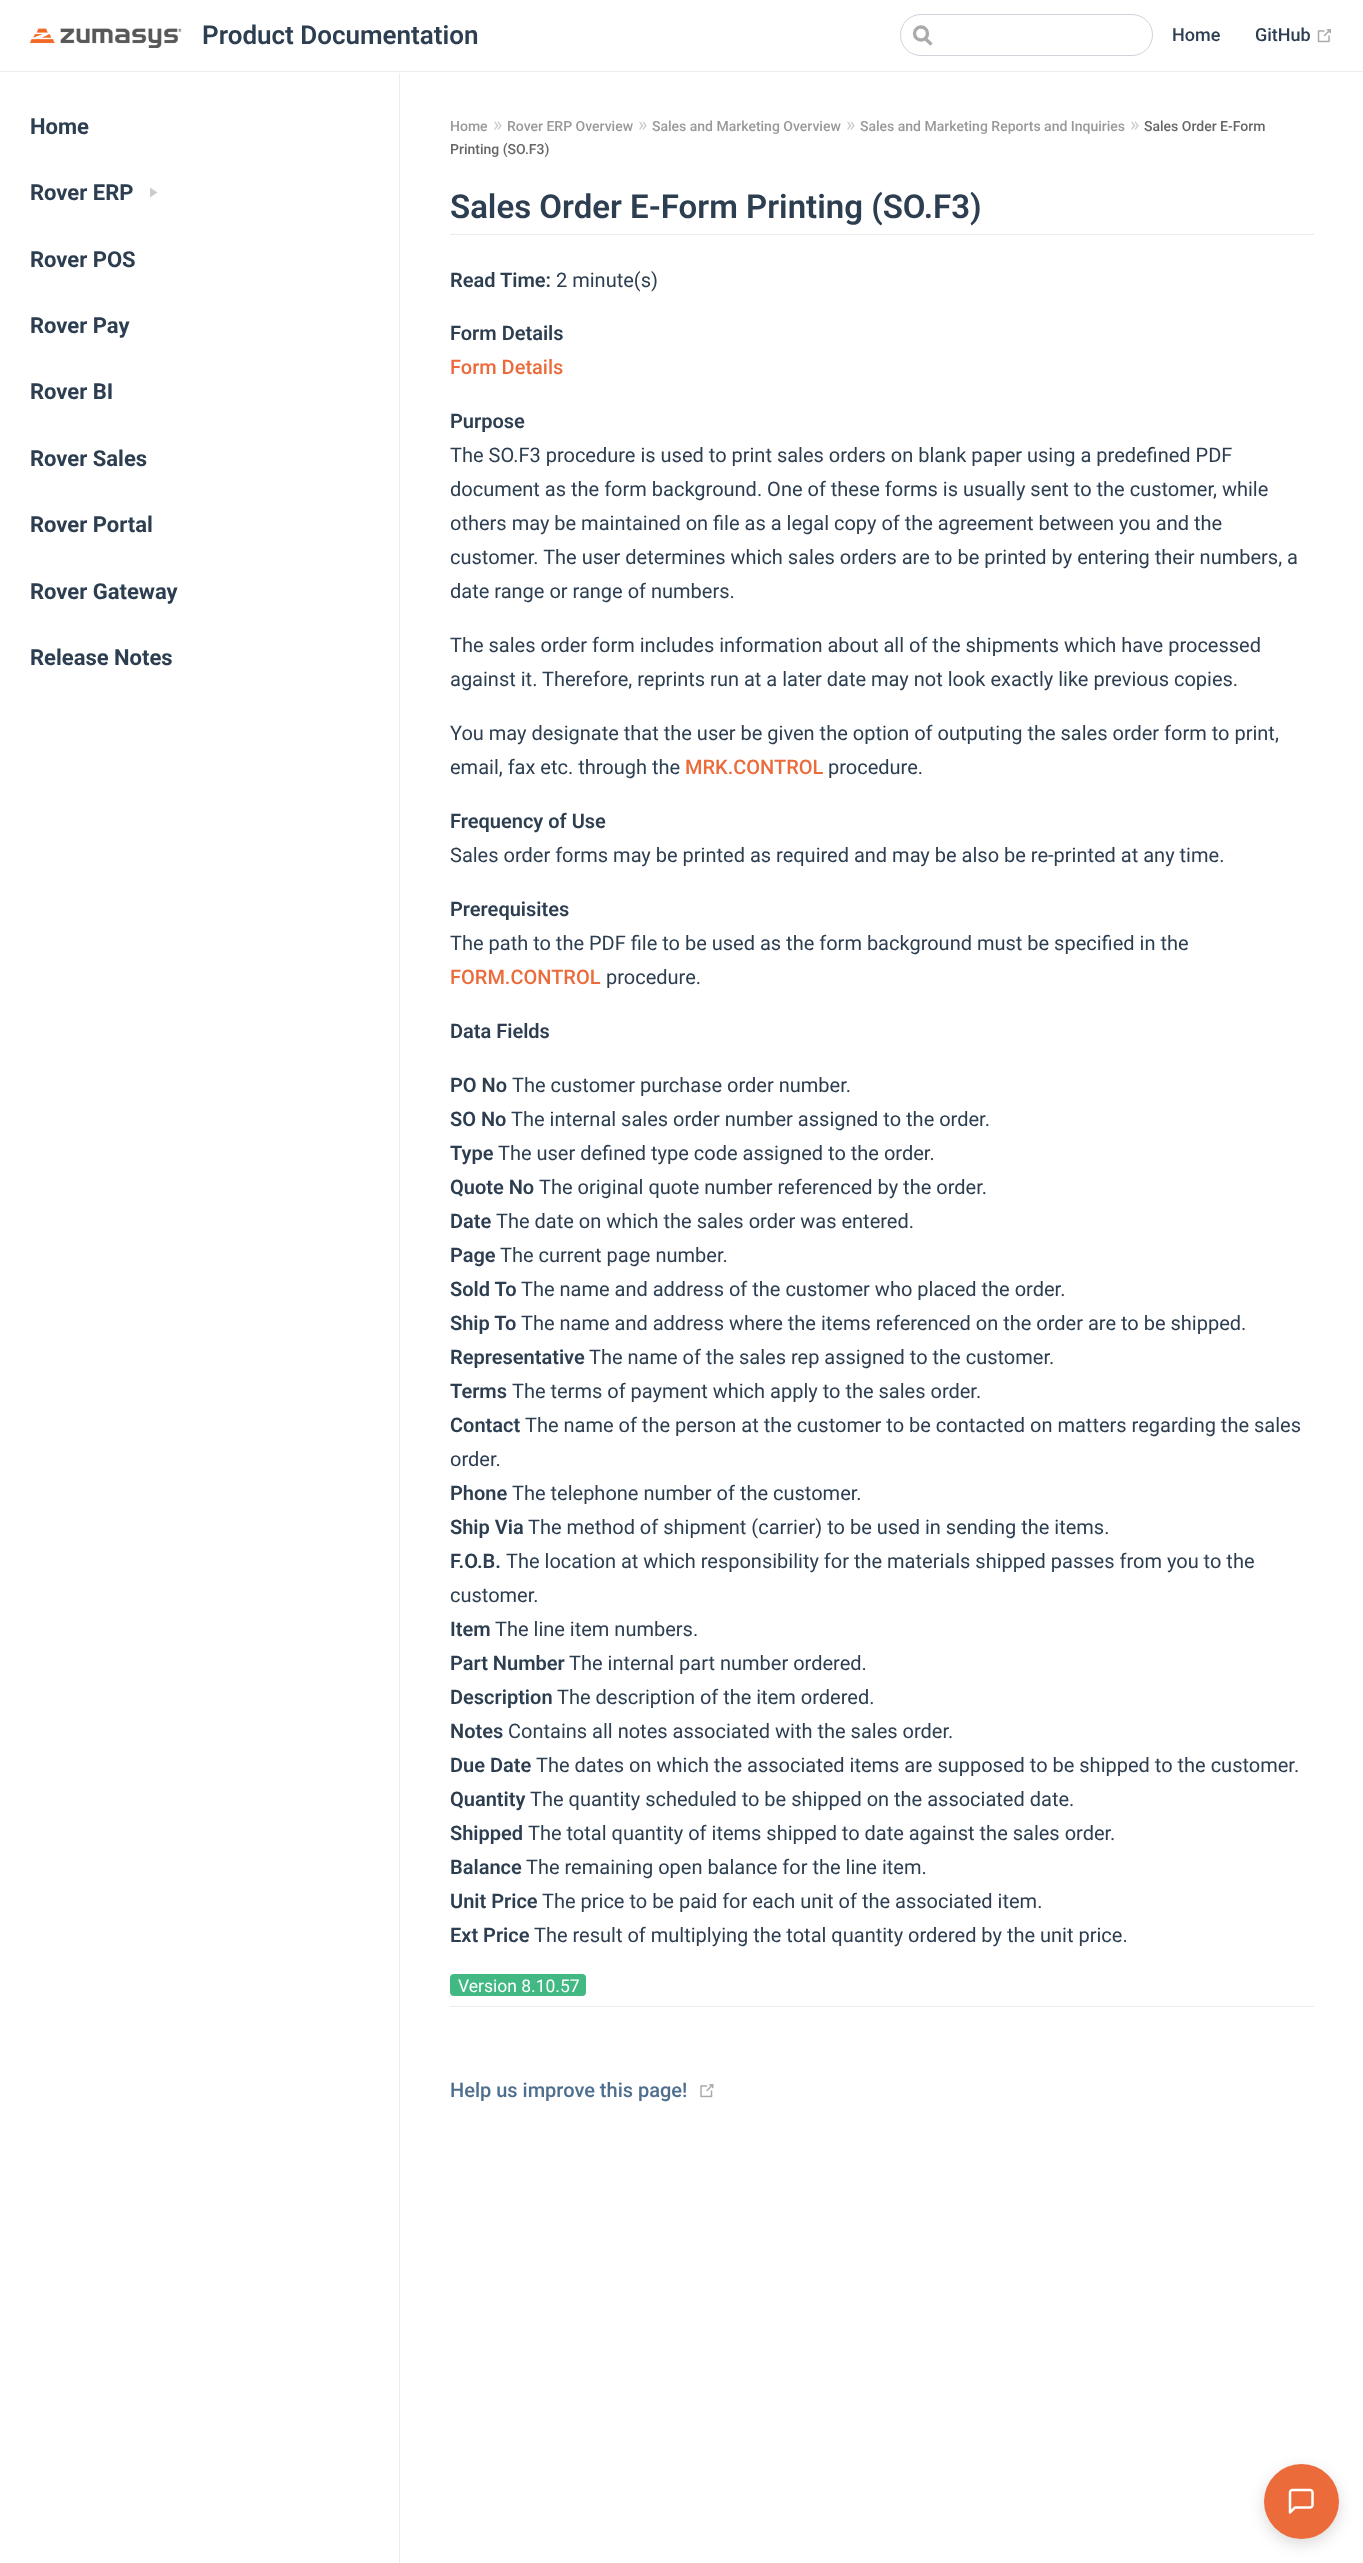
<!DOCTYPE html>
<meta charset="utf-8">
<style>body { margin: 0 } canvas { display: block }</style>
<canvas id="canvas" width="1363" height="2563"></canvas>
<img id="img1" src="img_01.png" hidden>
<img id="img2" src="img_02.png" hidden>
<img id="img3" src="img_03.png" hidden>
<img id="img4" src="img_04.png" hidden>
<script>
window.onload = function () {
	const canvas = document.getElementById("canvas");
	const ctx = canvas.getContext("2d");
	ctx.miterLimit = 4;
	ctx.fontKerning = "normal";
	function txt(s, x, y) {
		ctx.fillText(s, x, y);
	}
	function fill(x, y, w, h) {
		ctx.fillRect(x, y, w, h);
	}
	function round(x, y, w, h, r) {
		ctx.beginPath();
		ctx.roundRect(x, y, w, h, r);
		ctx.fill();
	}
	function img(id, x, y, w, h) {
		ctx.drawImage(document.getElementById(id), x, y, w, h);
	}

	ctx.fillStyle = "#FFFFFF";
	fill(0, 0, 1363, 2563);
	ctx.fillStyle = "#EAECEF";
	fill(0, 71, 1363, 1);
	img("img1", 30, 28, 152, 20);
	ctx.beginPath();
	ctx.moveTo(931.5, 44.5);
	ctx.lineTo(924.5, 38);
	ctx.strokeStyle = "#AAAAAA";
	ctx.lineWidth = 3.3;
	ctx.stroke();
	ctx.beginPath();
	ctx.arc(921, 33.5, 6.5, 0, Math.PI * 2);
	ctx.stroke();
	ctx.beginPath();
	ctx.roundRect(900.5, 14.5, 252, 41, 20.5);
	ctx.strokeStyle = "#CFD4DB";
	ctx.lineWidth = 1;
	ctx.stroke();
	img("img2", 1317, 29, 14, 14);
	fill(399, 73, 1, 2490);
	ctx.fillStyle = "#CCCCCC";
	ctx.beginPath();
	ctx.moveTo(150, 197.5);
	ctx.lineTo(150, 187.5);
	ctx.lineTo(157.5, 192.5);
	ctx.closePath();
	ctx.fill();
	ctx.fillStyle = "#EAECEF";
	fill(450, 234, 864, 1);
	ctx.fillStyle = "#42B983";
	round(450, 1974, 136, 22, 4);
	ctx.fillStyle = "rgba(0, 0, 0, 0.15)";
	ctx.filter = "blur(7.5px)";
	ctx.beginPath();
	ctx.roundRect(1264, 2469, 75, 75, 37.5);
	ctx.fill();
	ctx.filter = "none";
	ctx.fillStyle = "#EB6B3B";
	ctx.beginPath();
	ctx.arc(1301.5, 2501.5, 37.5, 0, Math.PI * 2);
	ctx.fill();
	img("img3", 1288, 2488, 26, 26);
	ctx.fillStyle = "#EAECEF";
	fill(450, 2006, 864, 1);
	img("img4", 700, 2084, 14, 14);
	ctx.font = "600 26px Roboto";
	ctx.fillStyle = "#2C3E50";
	txt("Product Documentation", 202, 44);
	ctx.font = "500 18px Roboto";
	txt("Home", 1172, 41);
	txt("GitHub", 1255, 41);
	ctx.font = "bold 22px Roboto";
	txt("Home", 30, 134);
	txt("Rover ERP", 30, 200);
	txt("Rover POS", 30, 267);
	txt("Rover Pay", 30, 333);
	txt("Rover BI", 30, 399);
	txt("Rover Sales", 30, 466);
	txt("Rover Portal", 30, 532);
	txt("Rover Gateway", 30, 599);
	txt("Release Notes", 30, 665);
	ctx.font = "500 14px Roboto";
	ctx.fillStyle = "#999999";
	txt("Home", 450, 131);
	ctx.font = "20px Roboto";
	ctx.fillStyle = "#CCCCCC";
	txt("»", 493, 131);
	ctx.font = "500 14px Roboto";
	ctx.fillStyle = "#999999";
	txt("Rover ERP Overview", 507, 131);
	ctx.font = "20px Roboto";
	ctx.fillStyle = "#CCCCCC";
	txt("»", 638, 131);
	ctx.font = "500 14px Roboto";
	ctx.fillStyle = "#999999";
	txt("Sales and Marketing Overview", 652, 131);
	ctx.font = "20px Roboto";
	ctx.fillStyle = "#CCCCCC";
	txt("»", 846, 131);
	ctx.font = "500 14px Roboto";
	ctx.fillStyle = "#999999";
	txt("Sales and Marketing Reports and Inquiries", 860, 131);
	ctx.font = "20px Roboto";
	ctx.fillStyle = "#CCCCCC";
	txt("»", 1130, 131);
	ctx.font = "500 14px Roboto";
	ctx.fillStyle = "#666666";
	txt("Sales Order E-Form", 1144, 131);
	txt("Printing (SO.F3)", 450, 154);
	ctx.font = "600 33px Roboto";
	ctx.fillStyle = "#2C3E50";
	txt("Sales Order E-Form Printing (SO.F3)", 450, 218);
	ctx.font = "600 20px Roboto";
	txt("Read Time:", 450, 287);
	ctx.font = "20px Roboto";
	txt("2 minute(s)", 556, 287);
	ctx.font = "600 20px Roboto";
	txt("Form Details", 450, 340);
	ctx.font = "500 20px Roboto";
	ctx.fillStyle = "#EB6B3B";
	txt("Form Details", 450, 374);
	ctx.font = "600 20px Roboto";
	ctx.fillStyle = "#2C3E50";
	txt("Purpose", 450, 428);
	ctx.font = "20px Roboto";
	txt("The SO.F3 procedure is used to print sales orders on blank paper using a predefined PDF", 450, 462);
	txt("document as the form background. One of these forms is usually sent to the customer, while", 450, 496);
	txt("others may be maintained on file as a legal copy of the agreement between you and the", 450, 530);
	txt("customer. The user determines which sales orders are to be printed by entering their numbers, a", 450, 564);
	txt("date range or range of numbers.", 450, 598);
	txt("The sales order form includes information about all of the shipments which have processed", 450, 652);
	txt("against it. Therefore, reprints run at a later date may not look exactly like previous copies.", 450, 686);
	txt("You may designate that the user be given the option of outputing the sales order form to print,", 450, 740);
	txt("email, fax etc. through the", 450, 774);
	ctx.font = "500 20px Roboto";
	ctx.fillStyle = "#EB6B3B";
	txt("MRK.CONTROL", 685, 774);
	ctx.font = "20px Roboto";
	ctx.fillStyle = "#2C3E50";
	txt("procedure.", 828, 774);
	ctx.font = "600 20px Roboto";
	txt("Frequency of Use", 450, 828);
	ctx.font = "20px Roboto";
	txt("Sales order forms may be printed as required and may be also be re-printed at any time.", 450, 862);
	ctx.font = "600 20px Roboto";
	txt("Prerequisites", 450, 916);
	ctx.font = "20px Roboto";
	txt("The path to the PDF file to be used as the form background must be specified in the", 450, 950);
	ctx.font = "500 20px Roboto";
	ctx.fillStyle = "#EB6B3B";
	txt("FORM.CONTROL", 450, 984);
	ctx.font = "20px Roboto";
	ctx.fillStyle = "#2C3E50";
	txt("procedure.", 606, 984);
	ctx.font = "600 20px Roboto";
	txt("Data Fields", 450, 1038);
	txt("PO No", 450, 1092);
	ctx.font = "20px Roboto";
	txt("The customer purchase order number.", 512, 1092);
	ctx.font = "600 20px Roboto";
	txt("SO No", 450, 1126);
	ctx.font = "20px Roboto";
	txt("The internal sales order number assigned to the order.", 511, 1126);
	ctx.font = "600 20px Roboto";
	txt("Type", 450, 1160);
	ctx.font = "20px Roboto";
	txt("The user defined type code assigned to the order.", 498, 1160);
	ctx.font = "600 20px Roboto";
	txt("Quote No", 450, 1194);
	ctx.font = "20px Roboto";
	txt("The original quote number referenced by the order.", 539, 1194);
	ctx.font = "600 20px Roboto";
	txt("Date", 450, 1228);
	ctx.font = "20px Roboto";
	txt("The date on which the sales order was entered.", 496, 1228);
	ctx.font = "600 20px Roboto";
	txt("Page", 450, 1262);
	ctx.font = "20px Roboto";
	txt("The current page number.", 500, 1262);
	ctx.font = "600 20px Roboto";
	txt("Sold To", 450, 1296);
	ctx.font = "20px Roboto";
	txt("The name and address of the customer who placed the order.", 521, 1296);
	ctx.font = "600 20px Roboto";
	txt("Ship To", 450, 1330);
	ctx.font = "20px Roboto";
	txt("The name and address where the items referenced on the order are to be shipped.", 521, 1330);
	ctx.font = "600 20px Roboto";
	txt("Representative", 450, 1364);
	ctx.font = "20px Roboto";
	txt("The name of the sales rep assigned to the customer.", 589, 1364);
	ctx.font = "600 20px Roboto";
	txt("Terms", 450, 1398);
	ctx.font = "20px Roboto";
	txt("The terms of payment which apply to the sales order.", 512, 1398);
	ctx.font = "600 20px Roboto";
	txt("Contact", 450, 1432);
	ctx.font = "20px Roboto";
	txt("The name of the person at the customer to be contacted on matters regarding the sales", 525, 1432);
	txt("order.", 450, 1466);
	ctx.font = "600 20px Roboto";
	txt("Phone", 450, 1500);
	ctx.font = "20px Roboto";
	txt("The telephone number of the customer.", 512, 1500);
	ctx.font = "600 20px Roboto";
	txt("Ship Via", 450, 1534);
	ctx.font = "20px Roboto";
	txt("The method of shipment (carrier) to be used in sending the items.", 528, 1534);
	ctx.font = "600 20px Roboto";
	txt("F.O.B.", 450, 1568);
	ctx.font = "20px Roboto";
	txt("The location at which responsibility for the materials shipped passes from you to the", 506, 1568);
	txt("customer.", 450, 1602);
	ctx.font = "600 20px Roboto";
	txt("Item", 450, 1636);
	ctx.font = "20px Roboto";
	txt("The line item numbers.", 495, 1636);
	ctx.font = "600 20px Roboto";
	txt("Part Number", 450, 1670);
	ctx.font = "20px Roboto";
	txt("The internal part number ordered.", 569, 1670);
	ctx.font = "600 20px Roboto";
	txt("Description", 450, 1704);
	ctx.font = "20px Roboto";
	txt("The description of the item ordered.", 557, 1704);
	ctx.font = "600 20px Roboto";
	txt("Notes", 450, 1738);
	ctx.font = "20px Roboto";
	txt("Contains all notes associated with the sales order.", 508, 1738);
	ctx.font = "600 20px Roboto";
	txt("Due Date", 450, 1772);
	ctx.font = "20px Roboto";
	txt("The dates on which the associated items are supposed to be shipped to the customer.", 536, 1772);
	ctx.font = "600 20px Roboto";
	txt("Quantity", 450, 1806);
	ctx.font = "20px Roboto";
	txt("The quantity scheduled to be shipped on the associated date.", 530, 1806);
	ctx.font = "600 20px Roboto";
	txt("Shipped", 450, 1840);
	ctx.font = "20px Roboto";
	txt("The total quantity of items shipped to date against the sales order.", 528, 1840);
	ctx.font = "600 20px Roboto";
	txt("Balance", 450, 1874);
	ctx.font = "20px Roboto";
	txt("The remaining open balance for the line item.", 526, 1874);
	ctx.font = "600 20px Roboto";
	txt("Unit Price", 450, 1908);
	ctx.font = "20px Roboto";
	txt("The price to be paid for each unit of the associated item.", 542, 1908);
	ctx.font = "600 20px Roboto";
	txt("Ext Price", 450, 1942);
	ctx.font = "20px Roboto";
	txt("The result of multiplying the total quantity ordered by the unit price.", 534, 1942);
	ctx.font = "17.5px Roboto";
	ctx.fillStyle = "#FFFFFF";
	txt("Version 8.10.57", 458, 1992);
	ctx.font = "500 20px Roboto";
	ctx.fillStyle = "#4E6E8E";
	txt("Help us improve this page!", 450, 2097);
};
</script>
